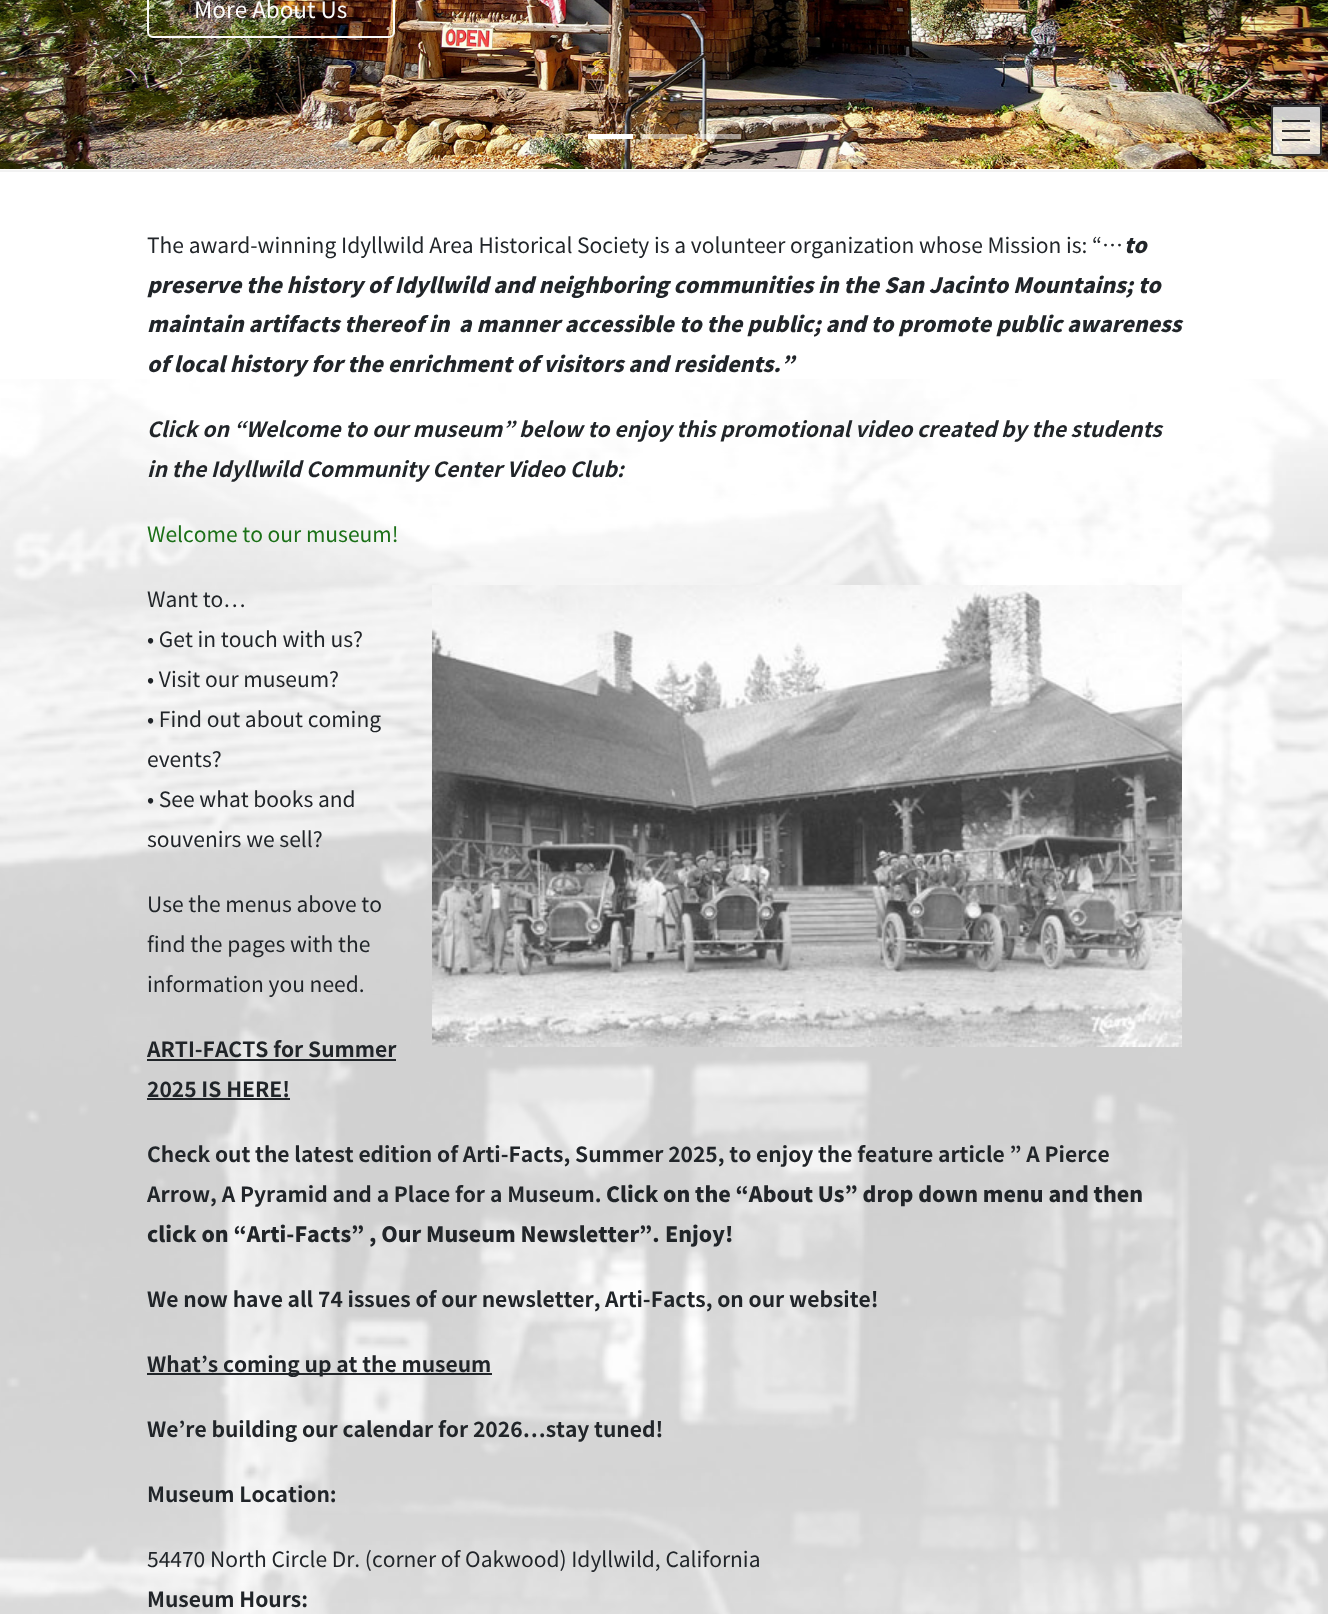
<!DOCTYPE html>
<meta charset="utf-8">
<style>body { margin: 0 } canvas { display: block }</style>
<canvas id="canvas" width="1328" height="1614"></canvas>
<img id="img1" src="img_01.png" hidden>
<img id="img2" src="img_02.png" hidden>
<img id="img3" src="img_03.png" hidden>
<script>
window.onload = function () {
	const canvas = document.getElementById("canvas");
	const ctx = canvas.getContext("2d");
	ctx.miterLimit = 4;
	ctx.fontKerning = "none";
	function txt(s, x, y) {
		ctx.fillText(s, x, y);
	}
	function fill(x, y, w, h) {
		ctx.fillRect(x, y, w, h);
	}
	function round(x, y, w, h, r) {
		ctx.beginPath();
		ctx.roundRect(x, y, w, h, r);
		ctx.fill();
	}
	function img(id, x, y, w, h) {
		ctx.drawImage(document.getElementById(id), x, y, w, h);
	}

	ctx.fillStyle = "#FFFFFF";
	fill(0, 0, 1328, 1614);
	img("img1", 0, 379, 1328, 1235);
	ctx.fillStyle = "#F2F2F2";
	fill(0, 170, 1328, 2);
	img("img2", 0, 0, 1328, 169);
	ctx.beginPath();
	ctx.roundRect(148, -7, 246, 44, 5);
	ctx.strokeStyle = "#FCFCFC";
	ctx.lineWidth = 2;
	ctx.stroke();
	ctx.fillStyle = "#FFFFFF";
	fill(588, 134, 45, 5);
	ctx.fillStyle = "rgba(255, 255, 255, 0.5)";
	fill(642, 134, 45, 5);
	fill(696, 134, 45, 5);
	ctx.fillStyle = "rgba(255, 255, 255, 0.8)";
	round(1271, 105, 51, 51, 3);
	ctx.fillStyle = "rgba(0, 0, 0, 0.8)";
	fill(1282, 120, 28, 2);
	fill(1282, 130, 28, 2);
	fill(1282, 139, 28, 2);
	ctx.beginPath();
	ctx.roundRect(1272, 106, 49, 49, 2);
	ctx.strokeStyle = "#333333";
	ctx.stroke();
	img("img3", 432, 585, 750, 462);
	ctx.fillStyle = "#212529";
	fill(147, 1059, 249, 2);
	fill(147, 1098, 143, 2);
	fill(147, 1373, 345, 2);
	ctx.font = "22.5px Noto Sans JP";
	ctx.fillStyle = "#FCFCFC";
	txt("More About Us", 194, 18);
	ctx.font = "21px Noto Sans JP";
	ctx.fillStyle = "#212529";
	txt("The award-winning Idyllwild Area Historical Society is a volunteer organization", 147, 253);
	txt("whose Mission is: “…", 919, 253);
	ctx.font = "italic 900 21px Noto Sans JP";
	txt("to", 1124, 253);
	txt("preserve the history of Idyllwild and neighboring communities in the San Jacinto Mountains;", 147, 293);
	txt("to", 1138, 293);
	txt("maintain artifacts thereof in  a manner accessible", 147, 332);
	txt("to the public; and to promote public awareness", 679, 332);
	txt("of local history for the enrichment of visitors and residents.”", 147, 372);
	ctx.font = "italic bold 21px Noto Sans JP";
	txt("Click on “Welcome to our museum” below to enjoy this promotional video created", 147, 437);
	txt("by the students", 1001, 437);
	txt("in the Idyllwild Community Center Video Club:", 147, 477);
	ctx.font = "21px Noto Sans JP";
	ctx.fillStyle = "#1B7017";
	txt("Welcome to our museum!", 147, 542);
	ctx.fillStyle = "#212529";
	txt("Want to…", 147, 607);
	txt("• Get in touch with us?", 147, 647);
	txt("• Visit our museum?", 147, 687);
	txt("• Find out about coming", 147, 727);
	txt("events?", 147, 767);
	txt("• See what books and", 147, 807);
	txt("souvenirs we sell?", 147, 847);
	txt("Use the menus above to", 147, 912);
	txt("find the pages with the", 147, 952);
	txt("information you need.", 147, 992);
	ctx.font = "bold 21px Noto Sans JP";
	txt("ARTI-FACTS for Summer", 147, 1057);
	txt("2025 IS HERE!", 147, 1097);
	txt("Check out the latest edition of Arti-Facts, Summer 2025, to enjoy", 147, 1162);
	txt("the feature article ” A Pierce", 818, 1162);
	txt("Arrow, A Pyramid and a Place for", 147, 1202);
	txt("a Museum.", 490, 1202);
	ctx.font = "900 21px Noto Sans JP";
	txt("Click on the “About Us” drop down menu and then", 606, 1202);
	txt("click on “Arti-Facts”", 147, 1242);
	txt(", Our Museum Newsletter”.", 369, 1242);
	txt("Enjoy!", 665, 1242);
	ctx.font = "bold 21px Noto Sans JP";
	txt("We now have all 74 issues of our newsletter,", 147, 1307);
	txt("Arti-Facts, on our website!", 605, 1307);
	txt("What’s coming up at the museum", 147, 1372);
	txt("We’re building our calendar for 2026…stay tuned!", 147, 1437);
	txt("Museum Location:", 147, 1502);
	ctx.font = "21px Noto Sans JP";
	txt("54470 North Circle Dr. (corner of Oakwood) Idyllwild, California", 147, 1567);
	ctx.font = "bold 21px Noto Sans JP";
	txt("Museum Hours:", 147, 1607);
};
</script>
